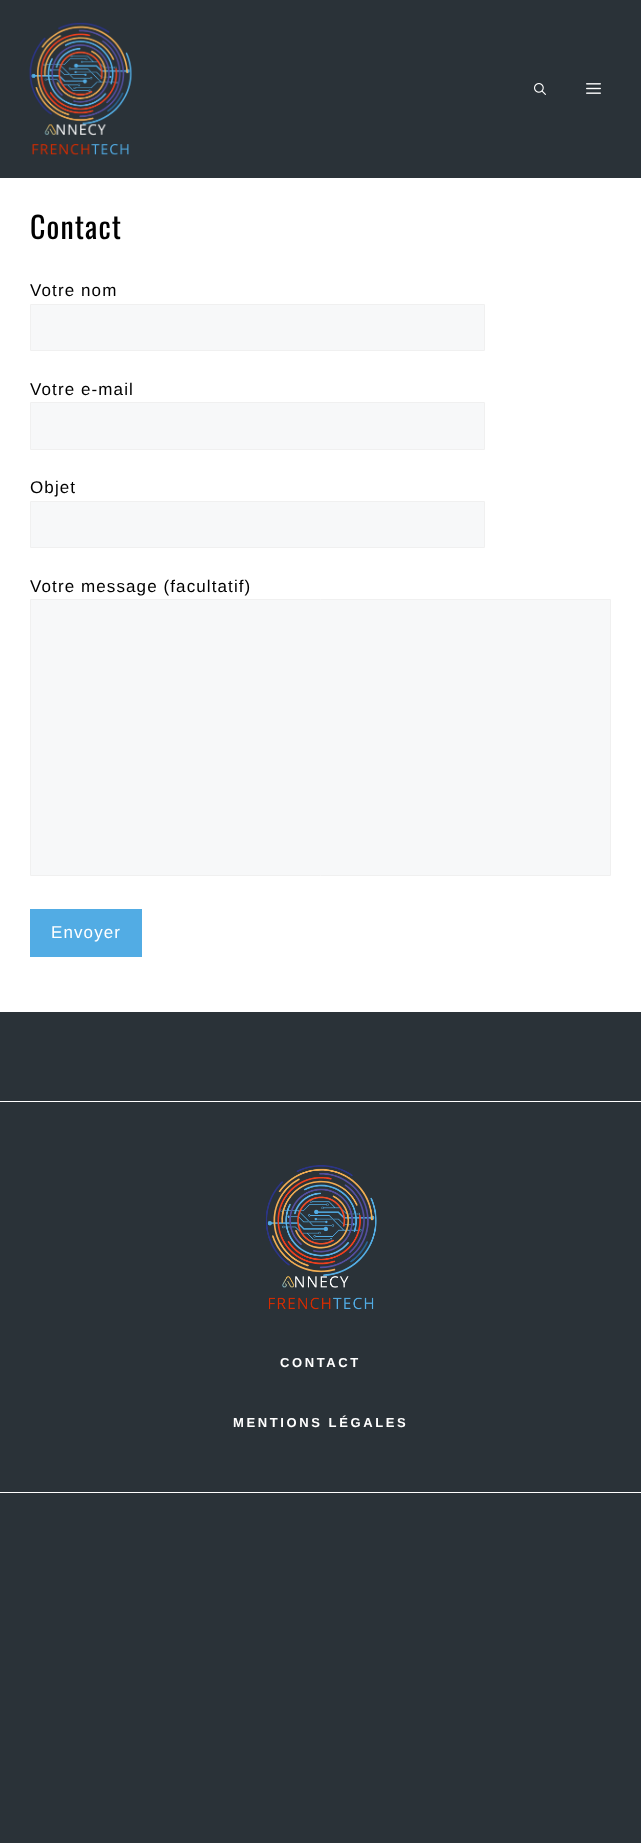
<!DOCTYPE html>
<meta charset="utf-8">
<style>body { margin: 0 } canvas { display: block }</style>
<canvas id="canvas" width="641" height="1843"></canvas>
<img id="img1" src="img_01.png" hidden>
<img id="img2" src="img_02.png" hidden>
<img id="img3" src="img_03.png" hidden>
<img id="img4" src="img_04.png" hidden>
<script>
window.onload = function () {
	const canvas = document.getElementById("canvas");
	const ctx = canvas.getContext("2d");
	ctx.miterLimit = 4;
	ctx.fontKerning = "normal";
	function txt(s, x, y) {
		ctx.fillText(s, x, y);
	}
	function fill(x, y, w, h) {
		ctx.fillRect(x, y, w, h);
	}
	function img(id, x, y, w, h) {
		ctx.drawImage(document.getElementById(id), x, y, w, h);
	}

	ctx.fillStyle = "#2A3238";
	fill(0, 0, 641, 1843);
	img("img1", 29, 22, 103, 133);
	img("img2", 534, 83, 12, 12);
	img("img3", 586, 83, 15, 11);
	ctx.fillStyle = "#FFFFFF";
	fill(0, 178, 641, 834);
	ctx.fillStyle = "#F7F8F9";
	ctx.beginPath();
	ctx.rect(30.5, 304.5, 454, 46);
	ctx.fill();
	ctx.strokeStyle = "#F0F0F0";
	ctx.stroke();
	ctx.beginPath();
	ctx.rect(30.5, 402.5, 454, 47);
	ctx.fill();
	ctx.stroke();
	ctx.beginPath();
	ctx.rect(30.5, 501.5, 454, 46);
	ctx.fill();
	ctx.stroke();
	ctx.beginPath();
	ctx.rect(30.5, 599.5, 580, 276);
	ctx.fill();
	ctx.stroke();
	ctx.fillStyle = "#52ACE4";
	fill(30, 909, 112, 48);
	ctx.fillStyle = "#FFFFFF";
	fill(0, 1101, 641, 1);
	fill(0, 1492, 641, 1);
	img("img4", 265, 1165, 112, 145);
	ctx.letterSpacing = "1.1px";
	ctx.font = "30px Oswald";
	ctx.fillStyle = "#000000";
	txt("Contact", 30, 239);
	ctx.font = "17px Liberation Sans";
	txt("Votre nom", 30, 296);
	txt("Votre e-mail", 30, 395);
	txt("Objet", 30, 493);
	txt("Votre message (facultatif)", 30, 592);
	ctx.fillStyle = "#FFFFFF";
	txt("Envoyer", 51, 938);
	ctx.letterSpacing = "2.6px";
	ctx.font = "bold 13px Liberation Sans";
	txt("CONTACT", 280, 1367);
	txt("MENTIONS LÉGALES", 233, 1427);
};
</script>
